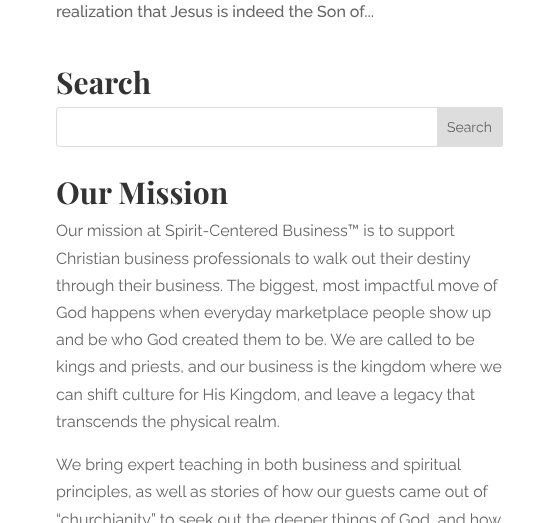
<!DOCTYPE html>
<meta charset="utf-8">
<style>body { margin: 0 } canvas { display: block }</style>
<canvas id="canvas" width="559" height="523"></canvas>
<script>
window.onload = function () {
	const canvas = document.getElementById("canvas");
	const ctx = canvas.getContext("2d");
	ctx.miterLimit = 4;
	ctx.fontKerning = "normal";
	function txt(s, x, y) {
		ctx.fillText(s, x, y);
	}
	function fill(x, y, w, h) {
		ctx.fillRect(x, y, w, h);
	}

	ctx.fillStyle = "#FFFFFF";
	fill(0, 0, 559, 523);
	ctx.beginPath();
	ctx.roundRect(56.5, 107.5, 446, 39, 2.5);
	ctx.strokeStyle = "#DDDDDD";
	ctx.stroke();
	ctx.fillStyle = "#DDDDDD";
	ctx.beginPath();
	ctx.roundRect(437.5, 107.5, 65, 39, [0, 2.5, 2.5, 0]);
	ctx.fill();
	ctx.stroke();
	ctx.font = "100 16px Raleway";
	ctx.fillStyle = "#666666";
	txt("realization that Jesus is indeed the Son of...", 56, 17);
	ctx.font = "bold 30px Playfair Display";
	ctx.fillStyle = "#333333";
	txt("Search", 56, 94);
	ctx.font = "100 14px 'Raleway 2'";
	ctx.fillStyle = "#666666";
	txt("Search", 447, 132);
	ctx.font = "bold 30px Playfair Display";
	ctx.fillStyle = "#333333";
	txt("Our Mission", 56, 204);
	ctx.font = "100 16px 'Raleway 2'";
	ctx.fillStyle = "#666666";
	txt("Our mission at Spirit-Centered Business™ is to support", 56, 236);
	txt("Christian business professionals to walk out their destiny", 56, 264);
	txt("through their business. The biggest, most impactful move of", 56, 291);
	txt("God happens when everyday marketplace people show up", 56, 318);
	txt("and be who God created them to be. We are called to be", 56, 345);
	txt("kings and priests, and our business is the kingdom where we", 56, 372);
	txt("can shift culture for His Kingdom, and leave a legacy that", 56, 400);
	txt("transcends the physical realm.", 56, 427);
	txt("We bring expert teaching in both business and spiritual", 56, 470);
	txt("principles, as well as stories of how our guests came out of", 56, 497);
	txt("“churchianity” to seek out the deeper things of God, and how", 56, 525);
};
</script>
